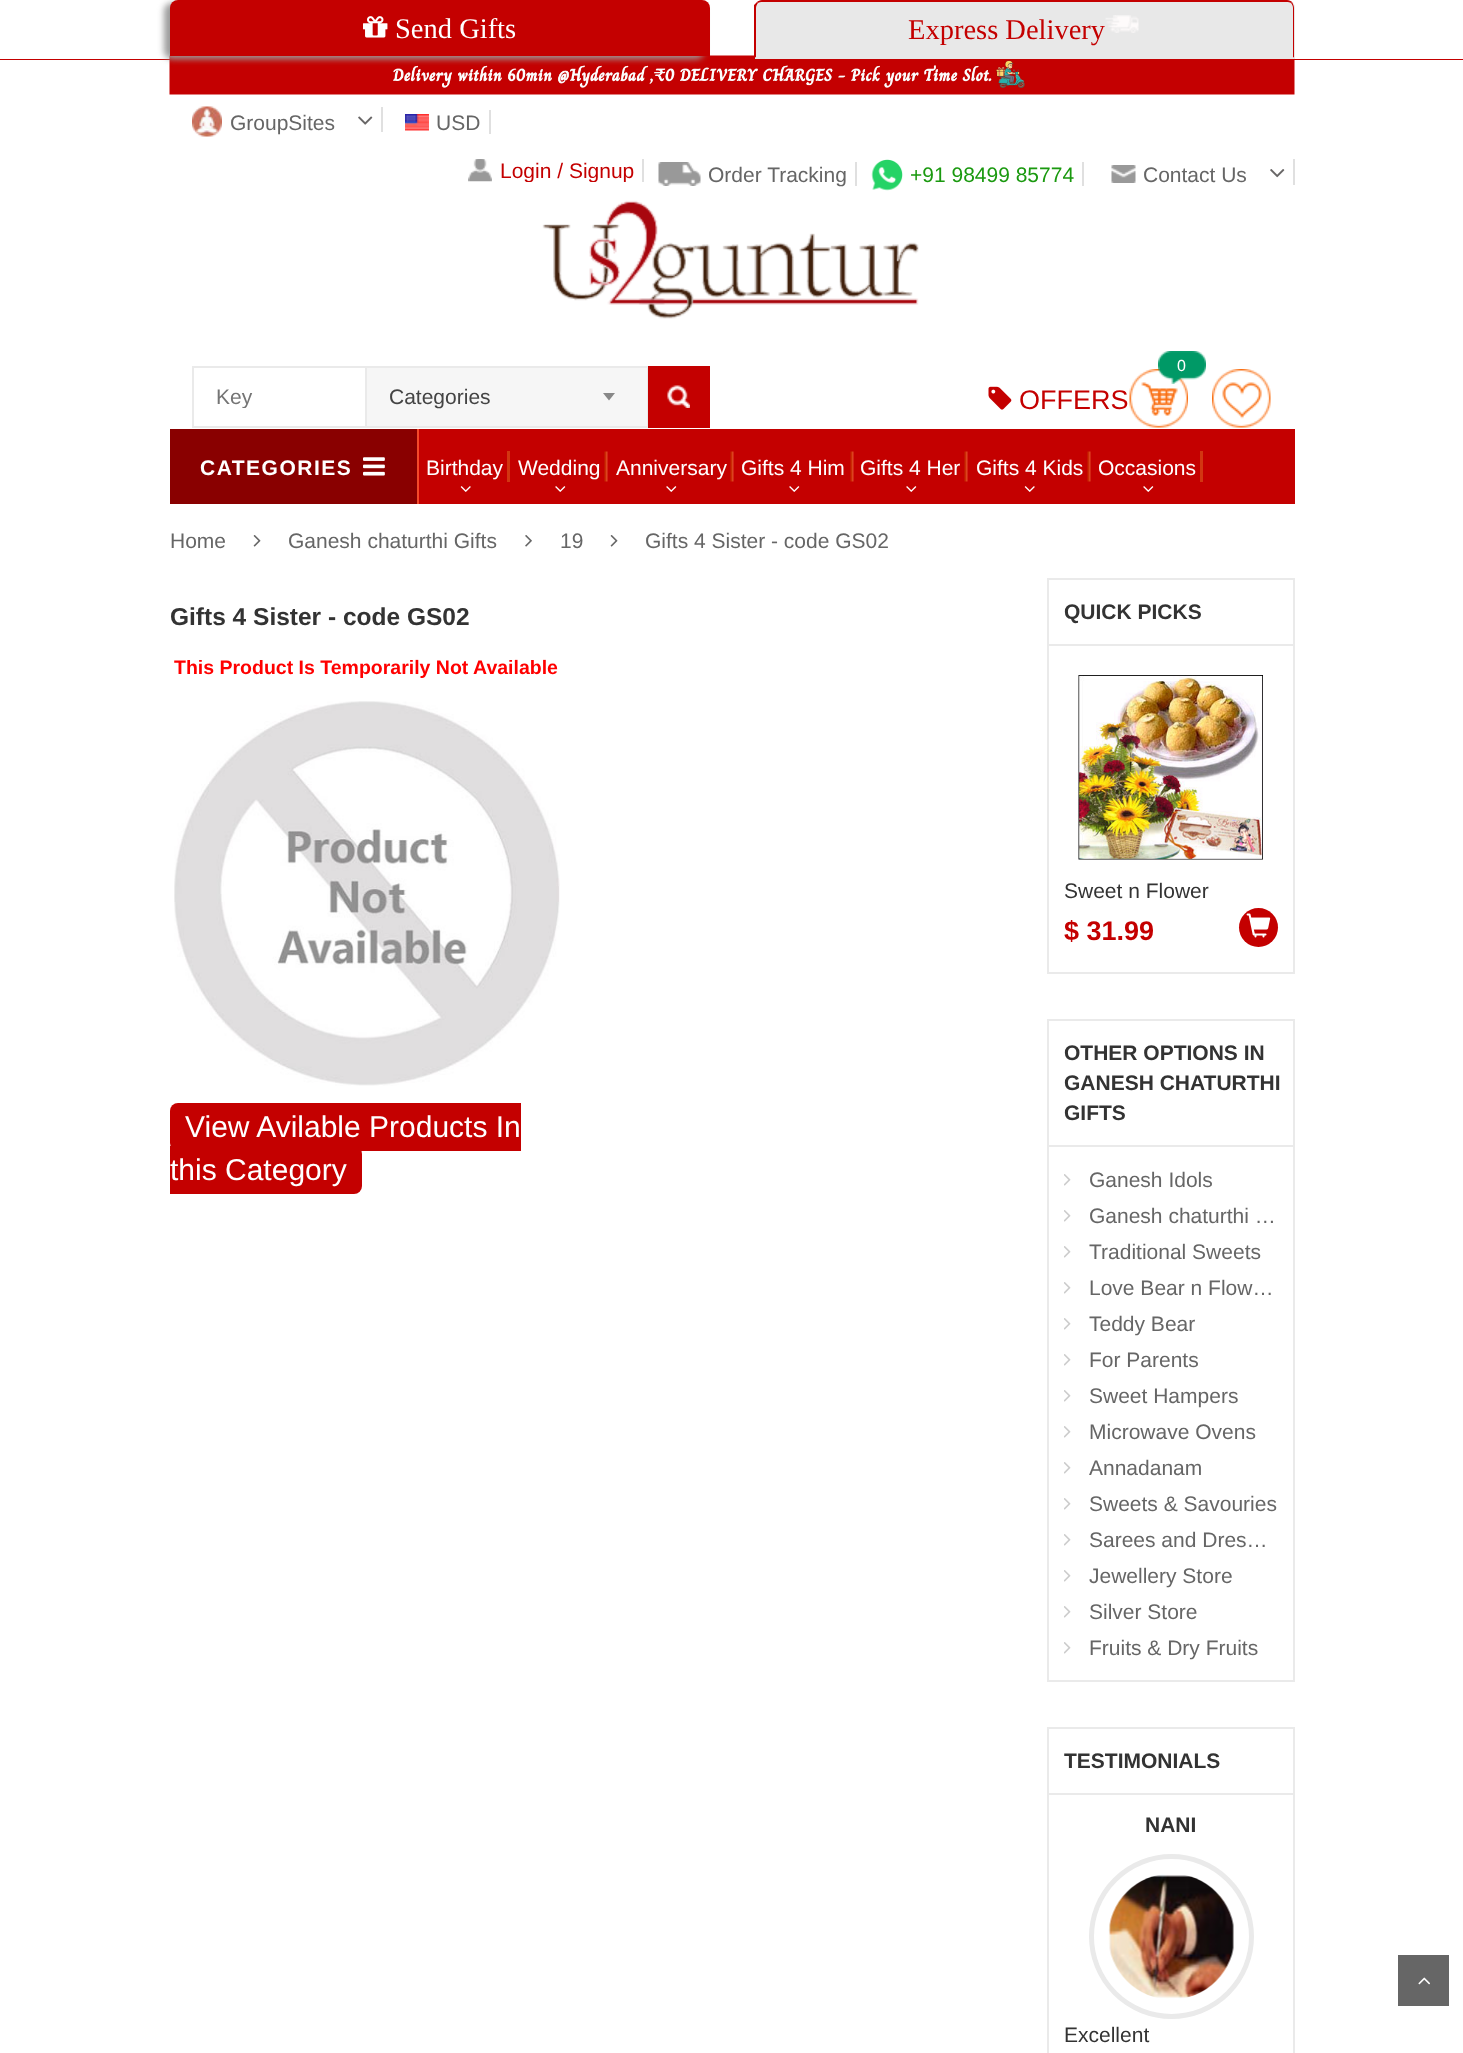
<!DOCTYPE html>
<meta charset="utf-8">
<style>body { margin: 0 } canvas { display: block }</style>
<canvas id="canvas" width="1463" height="2053"></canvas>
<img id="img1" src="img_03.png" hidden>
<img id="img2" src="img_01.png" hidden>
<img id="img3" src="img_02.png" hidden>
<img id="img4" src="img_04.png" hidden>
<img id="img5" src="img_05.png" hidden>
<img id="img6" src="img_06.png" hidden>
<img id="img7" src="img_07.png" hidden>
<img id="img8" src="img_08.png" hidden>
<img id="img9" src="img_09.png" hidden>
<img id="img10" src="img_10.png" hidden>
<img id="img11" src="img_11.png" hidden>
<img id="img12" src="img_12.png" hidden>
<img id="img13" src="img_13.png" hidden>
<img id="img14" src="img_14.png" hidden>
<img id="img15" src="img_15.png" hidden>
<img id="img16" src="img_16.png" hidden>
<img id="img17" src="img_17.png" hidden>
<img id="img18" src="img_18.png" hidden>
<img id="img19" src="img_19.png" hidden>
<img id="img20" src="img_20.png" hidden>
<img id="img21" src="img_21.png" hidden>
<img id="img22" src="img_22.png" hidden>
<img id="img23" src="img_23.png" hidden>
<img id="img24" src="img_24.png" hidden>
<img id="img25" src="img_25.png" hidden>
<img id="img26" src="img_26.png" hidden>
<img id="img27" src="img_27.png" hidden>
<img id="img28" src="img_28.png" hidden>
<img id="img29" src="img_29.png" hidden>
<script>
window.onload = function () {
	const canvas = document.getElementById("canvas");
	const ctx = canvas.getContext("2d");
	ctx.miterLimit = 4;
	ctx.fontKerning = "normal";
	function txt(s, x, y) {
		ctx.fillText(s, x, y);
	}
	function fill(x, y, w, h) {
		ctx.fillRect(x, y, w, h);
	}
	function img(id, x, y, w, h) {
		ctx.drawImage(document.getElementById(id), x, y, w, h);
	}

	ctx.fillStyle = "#FFFFFF";
	fill(0, 0, 1463, 2053);
	ctx.fillStyle = "#C40000";
	fill(0, 59, 1463, 1);
	img("img1", 169, 55, 1126, 40);
	ctx.fillStyle = "#9C9C9C";
	ctx.filter = "blur(3px)";
	ctx.beginPath();
	ctx.roundRect(164, 3, 540, 56, 8);
	ctx.fill();
	ctx.filter = "none";
	ctx.fillStyle = "#C40000";
	ctx.beginPath();
	ctx.roundRect(170, 0, 540, 56, [8, 8, 0, 0]);
	ctx.fill();
	img("img2", 363, 16, 25, 22);
	ctx.fillStyle = "#E8E8E8";
	ctx.beginPath();
	ctx.roundRect(755, 0, 540, 59, [8, 8, 0, 0]);
	ctx.fill();
	ctx.fillStyle = "#C40000";
	ctx.beginPath();
	ctx.moveTo(762, 0);
	ctx.bezierCurveTo(760, 0, 758, 1, 757, 2);
	ctx.lineTo(758, 3);
	ctx.bezierCurveTo(759, 2, 761, 2, 762, 2);
	ctx.lineTo(1287, 2);
	ctx.bezierCurveTo(1288, 2, 1290, 2, 1291, 3);
	ctx.lineTo(1292, 2);
	ctx.bezierCurveTo(1291, 1, 1289, 0, 1287, 0);
	ctx.closePath();
	ctx.fill();
	ctx.beginPath();
	ctx.moveTo(1292, 2);
	ctx.bezierCurveTo(1293, 4, 1294, 6, 1294, 8);
	ctx.lineTo(1294, 58);
	ctx.lineTo(1293, 57);
	ctx.lineTo(1293, 8);
	ctx.bezierCurveTo(1293, 6, 1292, 4, 1291, 3);
	ctx.closePath();
	ctx.fill();
	ctx.fillStyle = "#E8E8E8";
	ctx.beginPath();
	ctx.moveTo(1294, 58);
	ctx.lineTo(1293, 57);
	ctx.lineTo(756, 57);
	ctx.lineTo(755, 58);
	ctx.closePath();
	ctx.fill();
	ctx.fillStyle = "#C40000";
	ctx.beginPath();
	ctx.moveTo(754, 5);
	ctx.lineTo(757, 2);
	ctx.lineTo(758, 3);
	ctx.bezierCurveTo(757, 4, 756, 6, 756, 8);
	ctx.lineTo(756, 57);
	ctx.lineTo(754, 58);
	ctx.closePath();
	ctx.fill();
	img("img3", 1105, 15, 34, 18);
	ctx.fillStyle = "#E0E0E0";
	fill(381, 107, 2, 25);
	img("img4", 192, 106, 30, 31);
	img("img5", 358, 116, 15, 9);
	fill(489, 110, 2, 24);
	img("img6", 405, 114, 24, 17);
	fill(642, 159, 2, 23);
	img("img7", 468, 159, 24, 23);
	fill(855, 162, 2, 24);
	img("img8", 658, 162, 43, 24);
	fill(1082, 162, 2, 24);
	img("img9", 871, 159, 32, 32);
	fill(1293, 159, 2, 26);
	img("img10", 1111, 165, 25, 18);
	img("img11", 1270, 169, 15, 9);
	img("img12", 542, 200, 377, 119);
	ctx.strokeStyle = "#EAEAEA";
	ctx.lineWidth = 2;
	ctx.strokeRect(193, 367, 516, 60);
	ctx.fillStyle = "#F6F6F6";
	fill(367, 368, 280, 58);
	ctx.fillStyle = "#EAEAEA";
	fill(365, 368, 2, 58);
	fill(647, 368, 1, 60);
	ctx.fillStyle = "#888888";
	ctx.beginPath();
	ctx.moveTo(603, 393);
	ctx.lineTo(615, 393);
	ctx.lineTo(609, 400.5);
	ctx.closePath();
	ctx.fill();
	ctx.fillStyle = "#C40000";
	fill(648, 366, 62, 62);
	img("img13", 667, 385, 23, 23);
	img("img14", 1129, 369, 59, 59);
	img("img15", 1158, 351, 48, 33);
	img("img16", 988, 386, 24, 24);
	img("img17", 1212, 369, 59, 59);
	ctx.fillStyle = "#890000";
	fill(170, 429, 247, 75);
	img("img18", 363, 457, 22, 19);
	ctx.fillStyle = "#C40000";
	fill(419, 429, 876, 75);
	ctx.fillStyle = "#F44A2A";
	fill(417, 429, 2, 75);
	ctx.fillStyle = "#D23611";
	fill(507, 451, 3, 31);
	img("img19", 460, 486, 11, 6);
	img("img20", 604, 451, 4, 31);
	img("img21", 555, 486, 11, 6);
	img("img20", 730, 451, 4, 31);
	img("img21", 666, 486, 11, 6);
	img("img20", 850, 451, 4, 31);
	img("img21", 789, 486, 11, 6);
	img("img20", 964, 451, 4, 31);
	img("img21", 906, 486, 11, 6);
	img("img20", 1087, 451, 4, 31);
	img("img19", 1024, 486, 11, 6);
	fill(1200, 451, 3, 31);
	img("img21", 1143, 486, 11, 6);
	img("img22", 253, 535, 8, 12);
	img("img23", 525, 535, 7, 12);
	img("img22", 610, 535, 8, 12);
	img("img24", 174, 701, 386, 385);
	ctx.fillStyle = "#C40000";
	ctx.beginPath();
	ctx.roundRect(170, 1103, 351, 48, [8, 0, 0, 8]);
	ctx.fill();
	ctx.beginPath();
	ctx.roundRect(170, 1146, 192, 48, [0, 8, 8, 0]);
	ctx.fill();
	ctx.strokeRect(1048, 579, 246, 394);
	ctx.fillStyle = "#EAEAEA";
	fill(1049, 644, 244, 2);
	img("img25", 1078, 675, 185, 185);
	ctx.fillStyle = "#C40000";
	ctx.beginPath();
	ctx.arc(1258.5, 927.5, 19.5, 0, Math.PI * 2);
	ctx.fill();
	img("img26", 1246, 913, 25, 25);
	ctx.strokeRect(1048, 1020, 246, 661);
	ctx.fillStyle = "#EAEAEA";
	fill(1049, 1145, 244, 2);
	img("img27", 1064, 1174, 7, 12);
	img("img27", 1064, 1210, 7, 12);
	img("img27", 1064, 1246, 7, 12);
	img("img27", 1064, 1282, 7, 12);
	img("img27", 1064, 1318, 7, 12);
	img("img27", 1064, 1354, 7, 12);
	img("img27", 1064, 1390, 7, 12);
	img("img27", 1064, 1426, 7, 12);
	img("img27", 1064, 1462, 7, 12);
	img("img27", 1064, 1498, 7, 12);
	img("img27", 1064, 1534, 7, 12);
	img("img27", 1064, 1570, 7, 12);
	img("img27", 1064, 1606, 7, 12);
	img("img27", 1064, 1642, 7, 12);
	ctx.strokeRect(1048, 1728, 246, 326);
	fill(1049, 1793, 244, 2);
	ctx.beginPath();
	ctx.arc(1171.5, 1936.5, 80, 0, Math.PI * 2);
	ctx.lineWidth = 5;
	ctx.stroke();
	img("img28", 1108, 1874, 126, 125);
	ctx.fillStyle = "#666666";
	fill(1398, 1955, 51, 51);
	img("img29", 1418, 1977, 12, 8);
	ctx.font = "28.5px Liberation Serif";
	ctx.fillStyle = "#FFFFFF";
	txt("Send Gifts", 395, 38);
	ctx.fillStyle = "#C40000";
	txt("Express Delivery", 908, 39);
	ctx.font = "21px Liberation Sans";
	ctx.fillStyle = "#666666";
	txt("GroupSites", 230, 130);
	txt("USD", 436, 130);
	ctx.save();
	ctx.beginPath();
	ctx.rect(453, 159, 189, 23);
	ctx.clip();
	ctx.fillStyle = "#C40000";
	txt("Login / Signup", 500, 178);
	ctx.restore();
	txt("Order Tracking", 708, 182);
	ctx.fillStyle = "#1A990F";
	txt("+91 98499 85774", 910, 182);
	ctx.fillStyle = "#666666";
	txt("Contact Us", 1143, 182);
	ctx.save();
	ctx.beginPath();
	ctx.rect(216, 384, 42, 24);
	ctx.clip();
	ctx.fillStyle = "#757575";
	txt("Key", 216, 404);
	ctx.restore();
	ctx.fillStyle = "#444444";
	txt("Categories", 389, 404);
	ctx.font = "16px Liberation Sans";
	ctx.fillStyle = "#FFFFFF";
	txt("0", 1177, 371);
	ctx.font = "27px Liberation Sans";
	ctx.fillStyle = "#C40000";
	txt("OFFERS", 1019, 409);
	ctx.letterSpacing = "1.5px";
	ctx.font = "bold 21px Liberation Sans";
	ctx.fillStyle = "#FFFFFF";
	txt("CATEGORIES", 200, 475);
	ctx.letterSpacing = "0px";
	ctx.font = "21px Liberation Sans";
	txt("Birthday", 426, 475);
	txt("Wedding", 518, 475);
	txt("Anniversary", 616, 475);
	txt("Gifts 4 Him", 741, 475);
	txt("Gifts 4 Her", 860, 475);
	txt("Gifts 4 Kids", 976, 475);
	txt("Occasions", 1098, 475);
	ctx.fillStyle = "#666666";
	txt("Home", 170, 548);
	txt("Ganesh chaturthi Gifts", 288, 548);
	txt("19", 560, 548);
	txt("Gifts 4 Sister - code GS02", 645, 548);
	ctx.font = "bold 24.5px Liberation Sans";
	ctx.fillStyle = "#333333";
	txt("Gifts 4 Sister - code GS02", 170, 625);
	ctx.font = "bold 19.5px Liberation Sans";
	ctx.fillStyle = "#FF0000";
	txt("This Product Is Temporarily Not Available", 174, 674);
	ctx.font = "30px Liberation Sans";
	ctx.fillStyle = "#FFFFFF";
	txt("View Avilable Products In", 185, 1137);
	txt("this Category", 170, 1180);
	ctx.font = "bold 21px Liberation Sans";
	ctx.fillStyle = "#333333";
	txt("QUICK PICKS", 1064, 619);
	ctx.font = "21px Liberation Sans";
	txt("Sweet n Flower", 1064, 898);
	ctx.font = "bold 27px Liberation Sans";
	ctx.fillStyle = "#C40000";
	txt("$ 31.99", 1064, 940);
	ctx.font = "bold 21px Liberation Sans";
	ctx.fillStyle = "#333333";
	txt("OTHER OPTIONS IN", 1064, 1060);
	txt("GANESH CHATURTHI", 1064, 1090);
	txt("GIFTS", 1064, 1120);
	ctx.font = "21px Liberation Sans";
	ctx.fillStyle = "#666666";
	txt("Ganesh Idols", 1089, 1187);
	txt("Ganesh chaturthi …", 1089, 1223);
	txt("Traditional Sweets", 1089, 1259);
	txt("Love Bear n Flow…", 1089, 1295);
	txt("Teddy Bear", 1089, 1331);
	txt("For Parents", 1089, 1367);
	txt("Sweet Hampers", 1089, 1403);
	txt("Microwave Ovens", 1089, 1439);
	txt("Annadanam", 1089, 1475);
	txt("Sweets & Savouries", 1089, 1511);
	txt("Sarees and Dres…", 1089, 1547);
	txt("Jewellery Store", 1089, 1583);
	txt("Silver Store", 1089, 1619);
	txt("Fruits & Dry Fruits", 1089, 1655);
	ctx.font = "bold 21px Liberation Sans";
	ctx.fillStyle = "#333333";
	txt("TESTIMONIALS", 1064, 1768);
	txt("NANI", 1145, 1832);
	ctx.font = "21px Liberation Sans";
	txt("Excellent", 1064, 2042);
};
</script>
